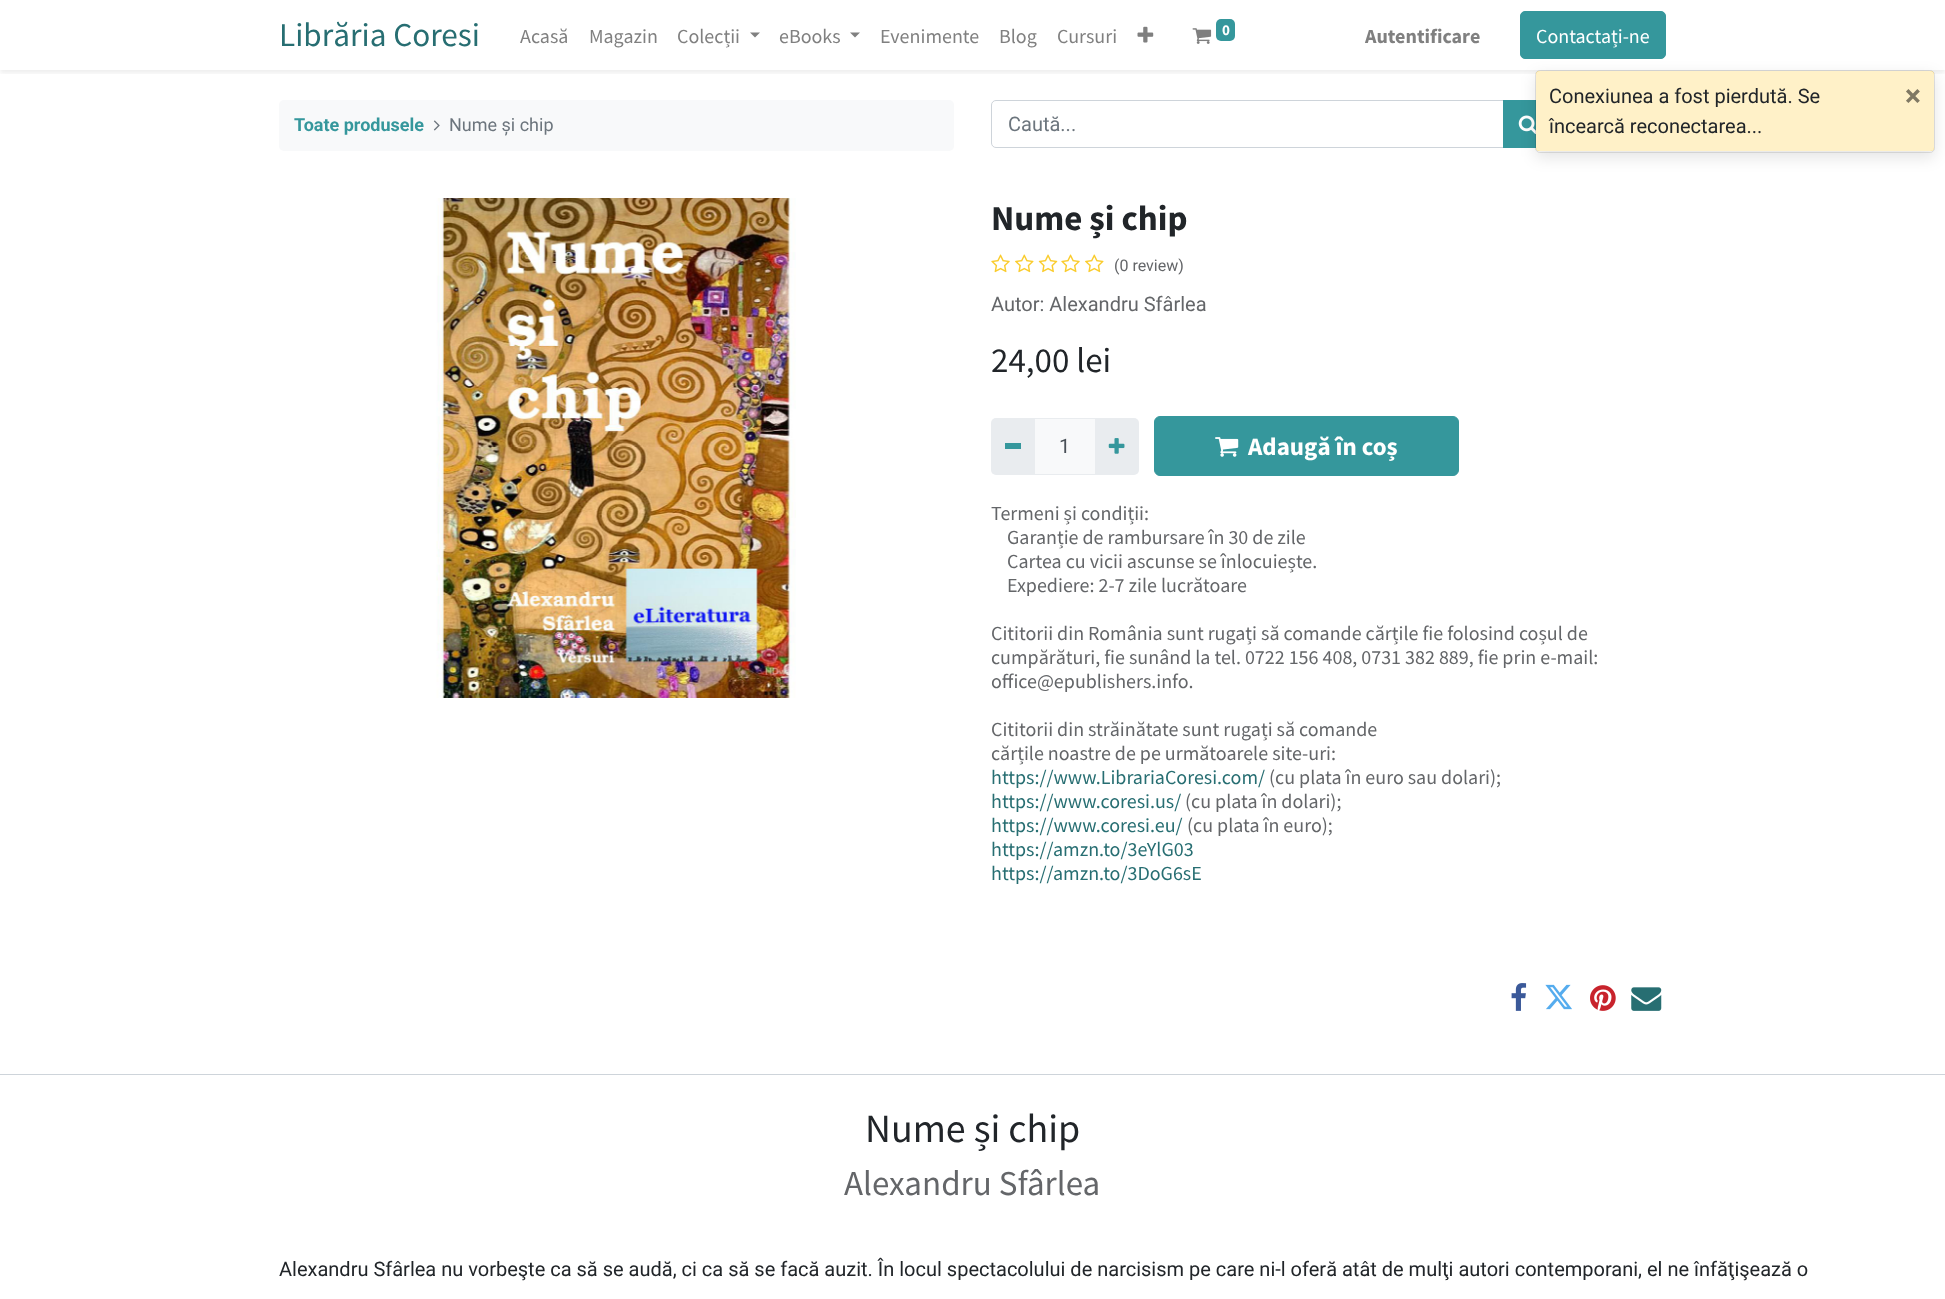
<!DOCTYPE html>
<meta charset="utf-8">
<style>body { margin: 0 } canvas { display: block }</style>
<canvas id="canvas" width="1945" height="1299"></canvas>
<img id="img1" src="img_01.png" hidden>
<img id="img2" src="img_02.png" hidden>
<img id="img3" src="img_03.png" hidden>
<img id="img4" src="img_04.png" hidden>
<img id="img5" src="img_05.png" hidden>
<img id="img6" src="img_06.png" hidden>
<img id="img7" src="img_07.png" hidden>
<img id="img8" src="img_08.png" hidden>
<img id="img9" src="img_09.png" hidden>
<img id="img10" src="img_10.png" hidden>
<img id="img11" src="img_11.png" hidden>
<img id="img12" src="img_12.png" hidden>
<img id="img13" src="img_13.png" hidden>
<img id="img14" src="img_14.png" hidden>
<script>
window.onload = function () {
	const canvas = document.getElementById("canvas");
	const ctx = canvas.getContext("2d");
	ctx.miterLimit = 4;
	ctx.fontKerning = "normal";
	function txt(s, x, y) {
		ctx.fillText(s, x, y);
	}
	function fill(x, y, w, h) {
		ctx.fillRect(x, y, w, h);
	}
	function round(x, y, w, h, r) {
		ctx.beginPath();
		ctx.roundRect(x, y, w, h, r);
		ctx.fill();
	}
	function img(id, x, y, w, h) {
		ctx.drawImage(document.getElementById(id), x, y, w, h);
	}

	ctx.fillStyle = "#FFFFFF";
	fill(0, 0, 1945, 1299);
	ctx.save();
	ctx.beginPath();
	ctx.rect(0, 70, 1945, 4);
	ctx.clip();
	ctx.fillStyle = "rgba(0, 0, 0, 0.07)";
	ctx.filter = "blur(2.5px)";
	ctx.beginPath();
	ctx.rect(0, 3, 1945, 70);
	ctx.fill();
	ctx.filter = "none";
	ctx.restore();
	ctx.fillStyle = "#808080";
	ctx.beginPath();
	ctx.moveTo(750, 32.5);
	ctx.lineTo(760, 32.5);
	ctx.lineTo(755, 37.5);
	ctx.closePath();
	ctx.fill();
	ctx.beginPath();
	ctx.moveTo(850, 32.5);
	ctx.lineTo(860, 32.5);
	ctx.lineTo(855, 37.5);
	ctx.closePath();
	ctx.fill();
	img("img1", 1137, 26, 17, 17);
	img("img2", 1192, 28, 20, 16);
	ctx.fillStyle = "#35979C";
	round(1216, 19, 19, 22, 5);
	ctx.beginPath();
	ctx.roundRect(1520.5, 11.5, 145, 47, 4.5);
	ctx.fill();
	ctx.strokeStyle = "#35979C";
	ctx.stroke();
	ctx.fillStyle = "#F8F9FA";
	round(279, 100, 675, 51, 5);
	img("img3", 433, 120, 7, 11);
	ctx.beginPath();
	ctx.roundRect(991.5, 100.5, 512, 47, [4.5, 0, 0, 4.5]);
	ctx.strokeStyle = "#CED4DA";
	ctx.stroke();
	ctx.fillStyle = "#35979C";
	fill(1504, 101, 32, 46);
	ctx.strokeStyle = "#35979C";
	ctx.strokeRect(1503.5, 100.5, 50, 47);
	img("img4", 1518, 115, 18, 20);
	img("img5", 436, 198, 360, 500);
	img("img6", 991, 254, 19, 19);
	img("img7", 1015, 254, 19, 19);
	img("img8", 1038, 254, 20, 19);
	img("img6", 1061, 254, 19, 19);
	img("img7", 1085, 254, 19, 19);
	ctx.fillStyle = "#F8F9FA";
	ctx.beginPath();
	ctx.rect(1034.5, 418.5, 61, 56);
	ctx.fill();
	ctx.strokeStyle = "#E9ECEF";
	ctx.stroke();
	ctx.fillStyle = "#E9ECEF";
	ctx.beginPath();
	ctx.roundRect(991, 418, 44, 57, [5, 0, 0, 5]);
	ctx.fill();
	ctx.fillStyle = "#35979C";
	fill(1005, 443, 16, 6);
	ctx.fillStyle = "#E9ECEF";
	ctx.beginPath();
	ctx.roundRect(1095, 418, 44, 57, [0, 5, 5, 0]);
	ctx.fill();
	img("img9", 1108, 438, 17, 16);
	ctx.fillStyle = "#35979C";
	ctx.beginPath();
	ctx.roundRect(1154.5, 416.5, 304, 59, 5.5);
	ctx.fill();
	ctx.strokeStyle = "#35979C";
	ctx.stroke();
	img("img10", 1215, 437, 24, 20);
	img("img11", 1511, 983, 16, 28);
	img("img12", 1545, 984, 27, 26);
	img("img13", 1590, 985, 26, 26);
	img("img14", 1631, 987, 31, 24);
	ctx.fillStyle = "#CED4DA";
	fill(0, 1074, 1945, 1);
	ctx.fillStyle = "rgba(0, 0, 0, 0.1)";
	ctx.filter = "blur(7.5px)";
	ctx.beginPath();
	ctx.roundRect(1535, 75, 400, 83, 5);
	ctx.fill();
	ctx.filter = "none";
	ctx.fillStyle = "#FFC107";
	round(1536, 71, 398, 80, 4);
	ctx.beginPath();
	ctx.roundRect(1535.5, 70.5, 399, 82, 4.5);
	ctx.strokeStyle = "rgba(0, 0, 0, 0.1)";
	ctx.stroke();
	ctx.fillStyle = "rgba(255, 255, 255, 0.78)";
	round(1536, 71, 398, 80, 4);
	ctx.font = "33.25px Source Sans Pro";
	ctx.fillStyle = "#276E72";
	txt("Librăria Coresi", 279, 46);
	ctx.font = "20px Source Sans Pro";
	ctx.fillStyle = "#808080";
	txt("Acasă", 520, 43);
	txt("Magazin", 589, 43);
	txt("Colecții", 677, 43);
	txt("eBooks", 779, 43);
	txt("Evenimente", 880, 43);
	txt("Blog", 999, 43);
	txt("Cursuri", 1057, 43);
	ctx.font = "bold 15px Source Sans Pro";
	ctx.fillStyle = "#FFFFFF";
	txt("0", 1222, 35);
	ctx.font = "bold 20px Source Sans Pro";
	ctx.fillStyle = "#808080";
	txt("Autentificare", 1365, 43);
	ctx.font = "20px Source Sans Pro";
	ctx.fillStyle = "#FFFFFF";
	txt("Contactați-ne", 1536, 43);
	ctx.font = "bold 18px Roboto";
	ctx.fillStyle = "#35979C";
	txt("Toate produsele", 294, 131);
	ctx.font = "18px Roboto";
	ctx.fillStyle = "#6C757D";
	txt("Nume și chip", 449, 131);
	ctx.font = "20px Roboto";
	txt("Caută...", 1008, 131);
	ctx.font = "bold 35px Source Sans Pro";
	ctx.fillStyle = "#212529";
	txt("Nume și chip", 991, 230);
	ctx.font = "16px Roboto";
	ctx.fillStyle = "#646669";
	txt("(0 review)", 1114, 271);
	ctx.font = "20px Roboto";
	txt("Autor: Alexandru Sfârlea", 991, 311);
	ctx.font = "35px Source Sans Pro";
	ctx.fillStyle = "#212529";
	txt("24,00 lei", 991, 372);
	ctx.font = "20px Roboto";
	ctx.fillStyle = "#495057";
	txt("1", 1059, 453);
	ctx.font = "bold 25px Source Sans Pro";
	ctx.fillStyle = "#FFFFFF";
	txt("Adaugă în coș", 1248, 455);
	ctx.font = "20px Source Sans Pro";
	ctx.fillStyle = "#646669";
	txt("Termeni și condiții:", 991, 520);
	txt("Garanție de rambursare în 30 de zile", 1007, 544);
	txt("Cartea cu vicii ascunse se înlocuiește.", 1007, 568);
	txt("Expediere: 2-7 zile lucrătoare", 1007, 592);
	txt("Cititorii din România sunt rugați să comande cărțile fie folosind coșul de", 991, 640);
	txt("cumpărături, fie sunând la tel. 0722 156 408, 0731 382 889, fie prin e-mail:", 991, 664);
	txt("office@epublishers.info.", 991, 688);
	txt("Cititorii din străinătate sunt rugați să comande", 991, 736);
	txt("cărțile noastre de pe următoarele site-uri:", 991, 760);
	ctx.fillStyle = "#276E72";
	txt("https://www.LibrariaCoresi.com/", 991, 784);
	ctx.fillStyle = "#646669";
	txt("(cu plata în euro sau dolari);", 1269, 784);
	ctx.fillStyle = "#276E72";
	txt("https://www.coresi.us/", 991, 808);
	ctx.fillStyle = "#646669";
	txt("(cu plata în dolari);", 1185, 808);
	ctx.fillStyle = "#276E72";
	txt("https://www.coresi.eu/", 991, 832);
	ctx.fillStyle = "#646669";
	txt("(cu plata în euro);", 1187, 832);
	ctx.fillStyle = "#276E72";
	txt("https://amzn.to/3eYlG03", 991, 856);
	txt("https://amzn.to/3DoG6sE", 991, 880);
	ctx.font = "40px Source Sans Pro";
	ctx.fillStyle = "#212529";
	txt("Nume și chip", 865, 1142);
	ctx.font = "35px Source Sans Pro";
	ctx.fillStyle = "#646669";
	txt("Alexandru Sfârlea", 844, 1195);
	ctx.font = "20px Roboto";
	ctx.fillStyle = "#212529";
	txt("Alexandru Sfârlea nu vorbeşte ca să se audă, ci ca să se facă auzit. În locul spectacolului de narcisism pe care ni-l oferă atât de mulţi autori contemporani, el ne înfăţişează o", 279, 1276);
	txt("Conexiunea a fost pierdută. Se", 1549, 103);
	txt("încearcă reconectarea...", 1549, 133);
	ctx.font = "bold 30px Roboto";
	ctx.fillStyle = "#807964";
	txt("×", 1905, 106);
};
</script>
